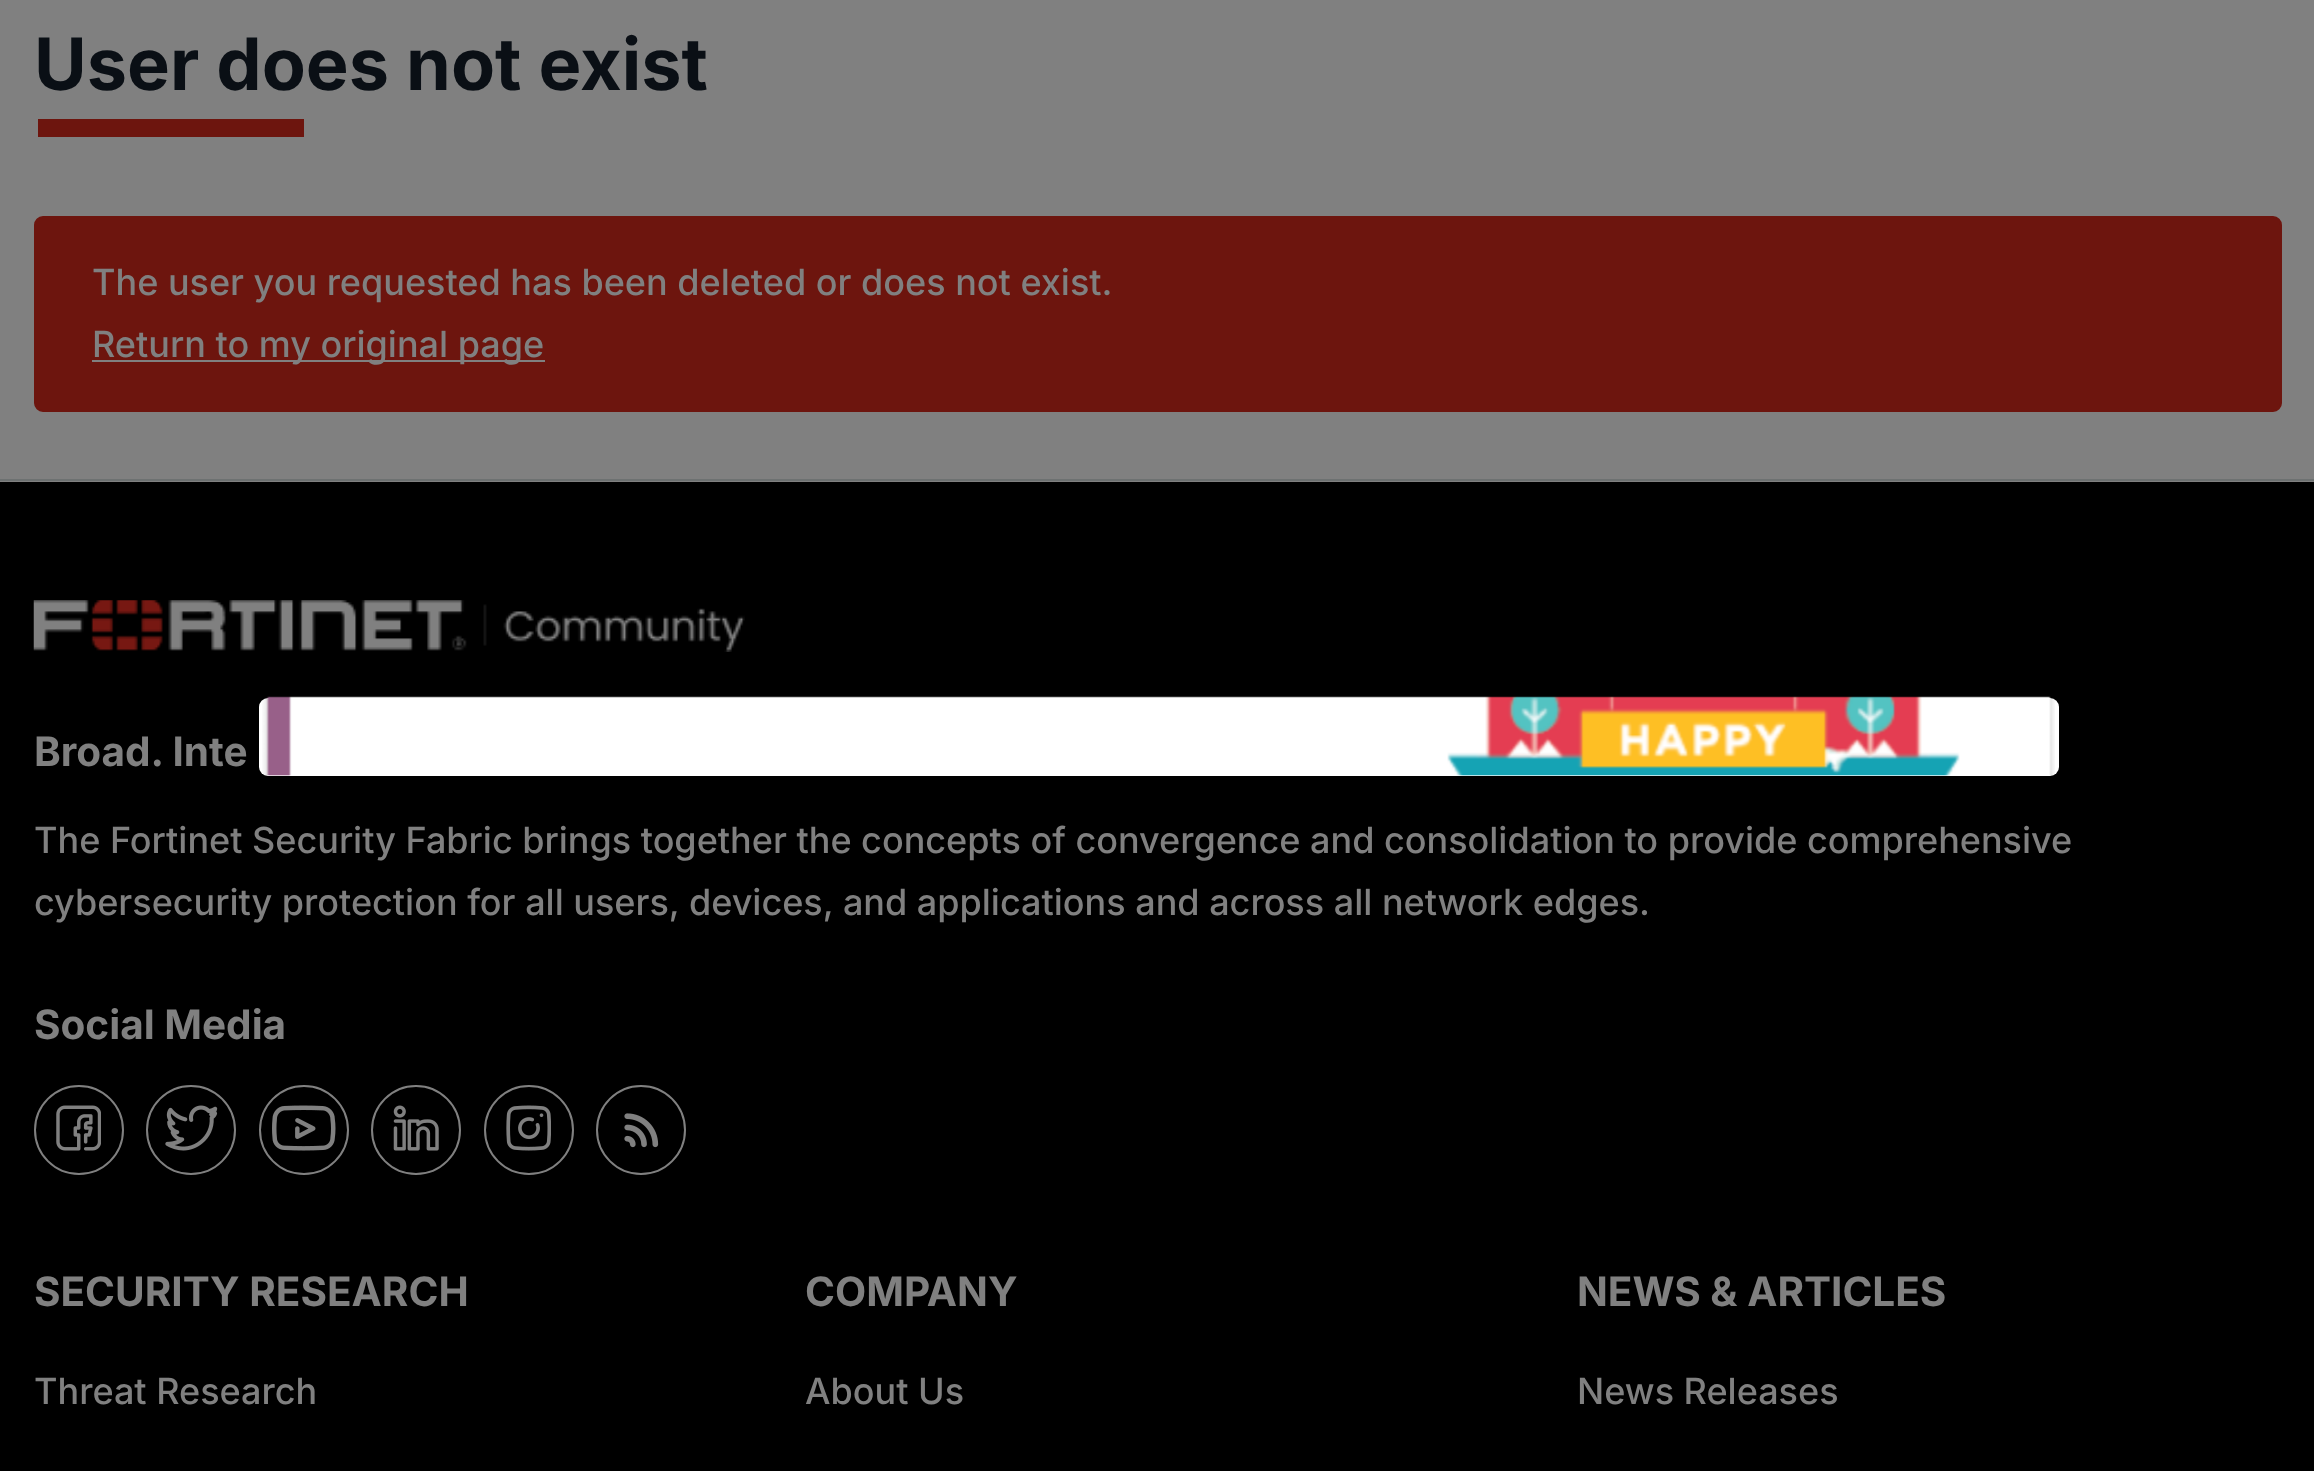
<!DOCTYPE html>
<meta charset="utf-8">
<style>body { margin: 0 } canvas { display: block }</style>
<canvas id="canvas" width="2314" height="1471"></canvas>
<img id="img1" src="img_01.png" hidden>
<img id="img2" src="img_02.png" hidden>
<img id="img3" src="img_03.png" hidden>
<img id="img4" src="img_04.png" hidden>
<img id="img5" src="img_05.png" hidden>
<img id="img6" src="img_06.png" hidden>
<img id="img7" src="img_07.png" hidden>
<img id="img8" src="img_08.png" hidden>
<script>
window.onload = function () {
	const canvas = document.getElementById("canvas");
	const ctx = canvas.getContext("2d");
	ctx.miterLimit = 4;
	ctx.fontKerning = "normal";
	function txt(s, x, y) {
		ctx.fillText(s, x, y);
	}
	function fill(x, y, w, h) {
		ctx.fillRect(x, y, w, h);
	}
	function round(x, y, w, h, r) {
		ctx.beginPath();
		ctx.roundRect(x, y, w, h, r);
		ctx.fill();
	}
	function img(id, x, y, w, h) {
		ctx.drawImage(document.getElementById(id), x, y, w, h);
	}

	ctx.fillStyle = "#808080";
	fill(0, 0, 2314, 1471);
	ctx.fillStyle = "#6D150E";
	fill(38, 119, 266, 18);
	ctx.fillStyle = "#000000";
	fill(0, 482, 2314, 989);
	ctx.fillStyle = "#FFFFFF";
	round(259, 698, 1800, 78, 9);
	img("img1", 262, 696, 1793, 80);
	ctx.fillStyle = "#6D150E";
	ctx.beginPath();
	ctx.roundRect(35, 217, 2246, 194, 8);
	ctx.fill();
	ctx.strokeStyle = "#6D150E";
	ctx.lineWidth = 2;
	ctx.stroke();
	ctx.fillStyle = "#808080";
	fill(92, 360, 453, 2);
	ctx.fillStyle = "#6D7171";
	fill(0, 479, 2314, 2);
	img("img2", 33, 600, 712, 52);
	ctx.beginPath();
	ctx.arc(79, 1130, 44, 0, Math.PI * 2);
	ctx.strokeStyle = "#808080";
	ctx.stroke();
	img("img3", 56, 1105, 45, 46);
	ctx.beginPath();
	ctx.arc(191, 1130, 44, 0, Math.PI * 2);
	ctx.stroke();
	img("img4", 165, 1105, 53, 46);
	ctx.beginPath();
	ctx.arc(304, 1130, 44, 0, Math.PI * 2);
	ctx.stroke();
	img("img5", 272, 1105, 64, 46);
	ctx.beginPath();
	ctx.arc(416, 1130, 44, 0, Math.PI * 2);
	ctx.stroke();
	img("img6", 393, 1105, 46, 46);
	ctx.beginPath();
	ctx.arc(529, 1130, 44, 0, Math.PI * 2);
	ctx.stroke();
	img("img7", 506, 1105, 45, 46);
	ctx.beginPath();
	ctx.arc(641, 1130, 44, 0, Math.PI * 2);
	ctx.stroke();
	img("img8", 624, 1113, 35, 35);
	ctx.font = "bold 72px Inter";
	ctx.fillStyle = "#0A0F15";
	txt("User does not exist", 34, 90);
	ctx.font = "500 36px Inter";
	ctx.fillStyle = "#808080";
	txt("The user you requested has been deleted or does not exist.", 92, 295);
	txt("Return to my original page", 92, 357);
	ctx.font = "bold 40.5px Inter";
	txt("Broad. Inte", 34, 766);
	ctx.font = "500 36px Inter";
	txt("The Fortinet Security Fabric brings together the concepts of convergence and consolidation to provide comprehensive", 34, 853);
	txt("cybersecurity protection for all users, devices, and applications and across all network edges.", 34, 915);
	ctx.font = "bold 40.5px Inter";
	txt("Social Media", 34, 1039);
	txt("SECURITY RESEARCH", 34, 1306);
	ctx.font = "500 36px Inter";
	txt("Threat Research", 34, 1404);
	ctx.font = "bold 40.5px Inter";
	txt("COMPANY", 805, 1306);
	ctx.font = "500 36px Inter";
	txt("About Us", 805, 1404);
	ctx.font = "bold 40.5px Inter";
	txt("NEWS & ARTICLES", 1577, 1306);
	ctx.font = "500 36px Inter";
	txt("News Releases", 1577, 1404);
};
</script>
